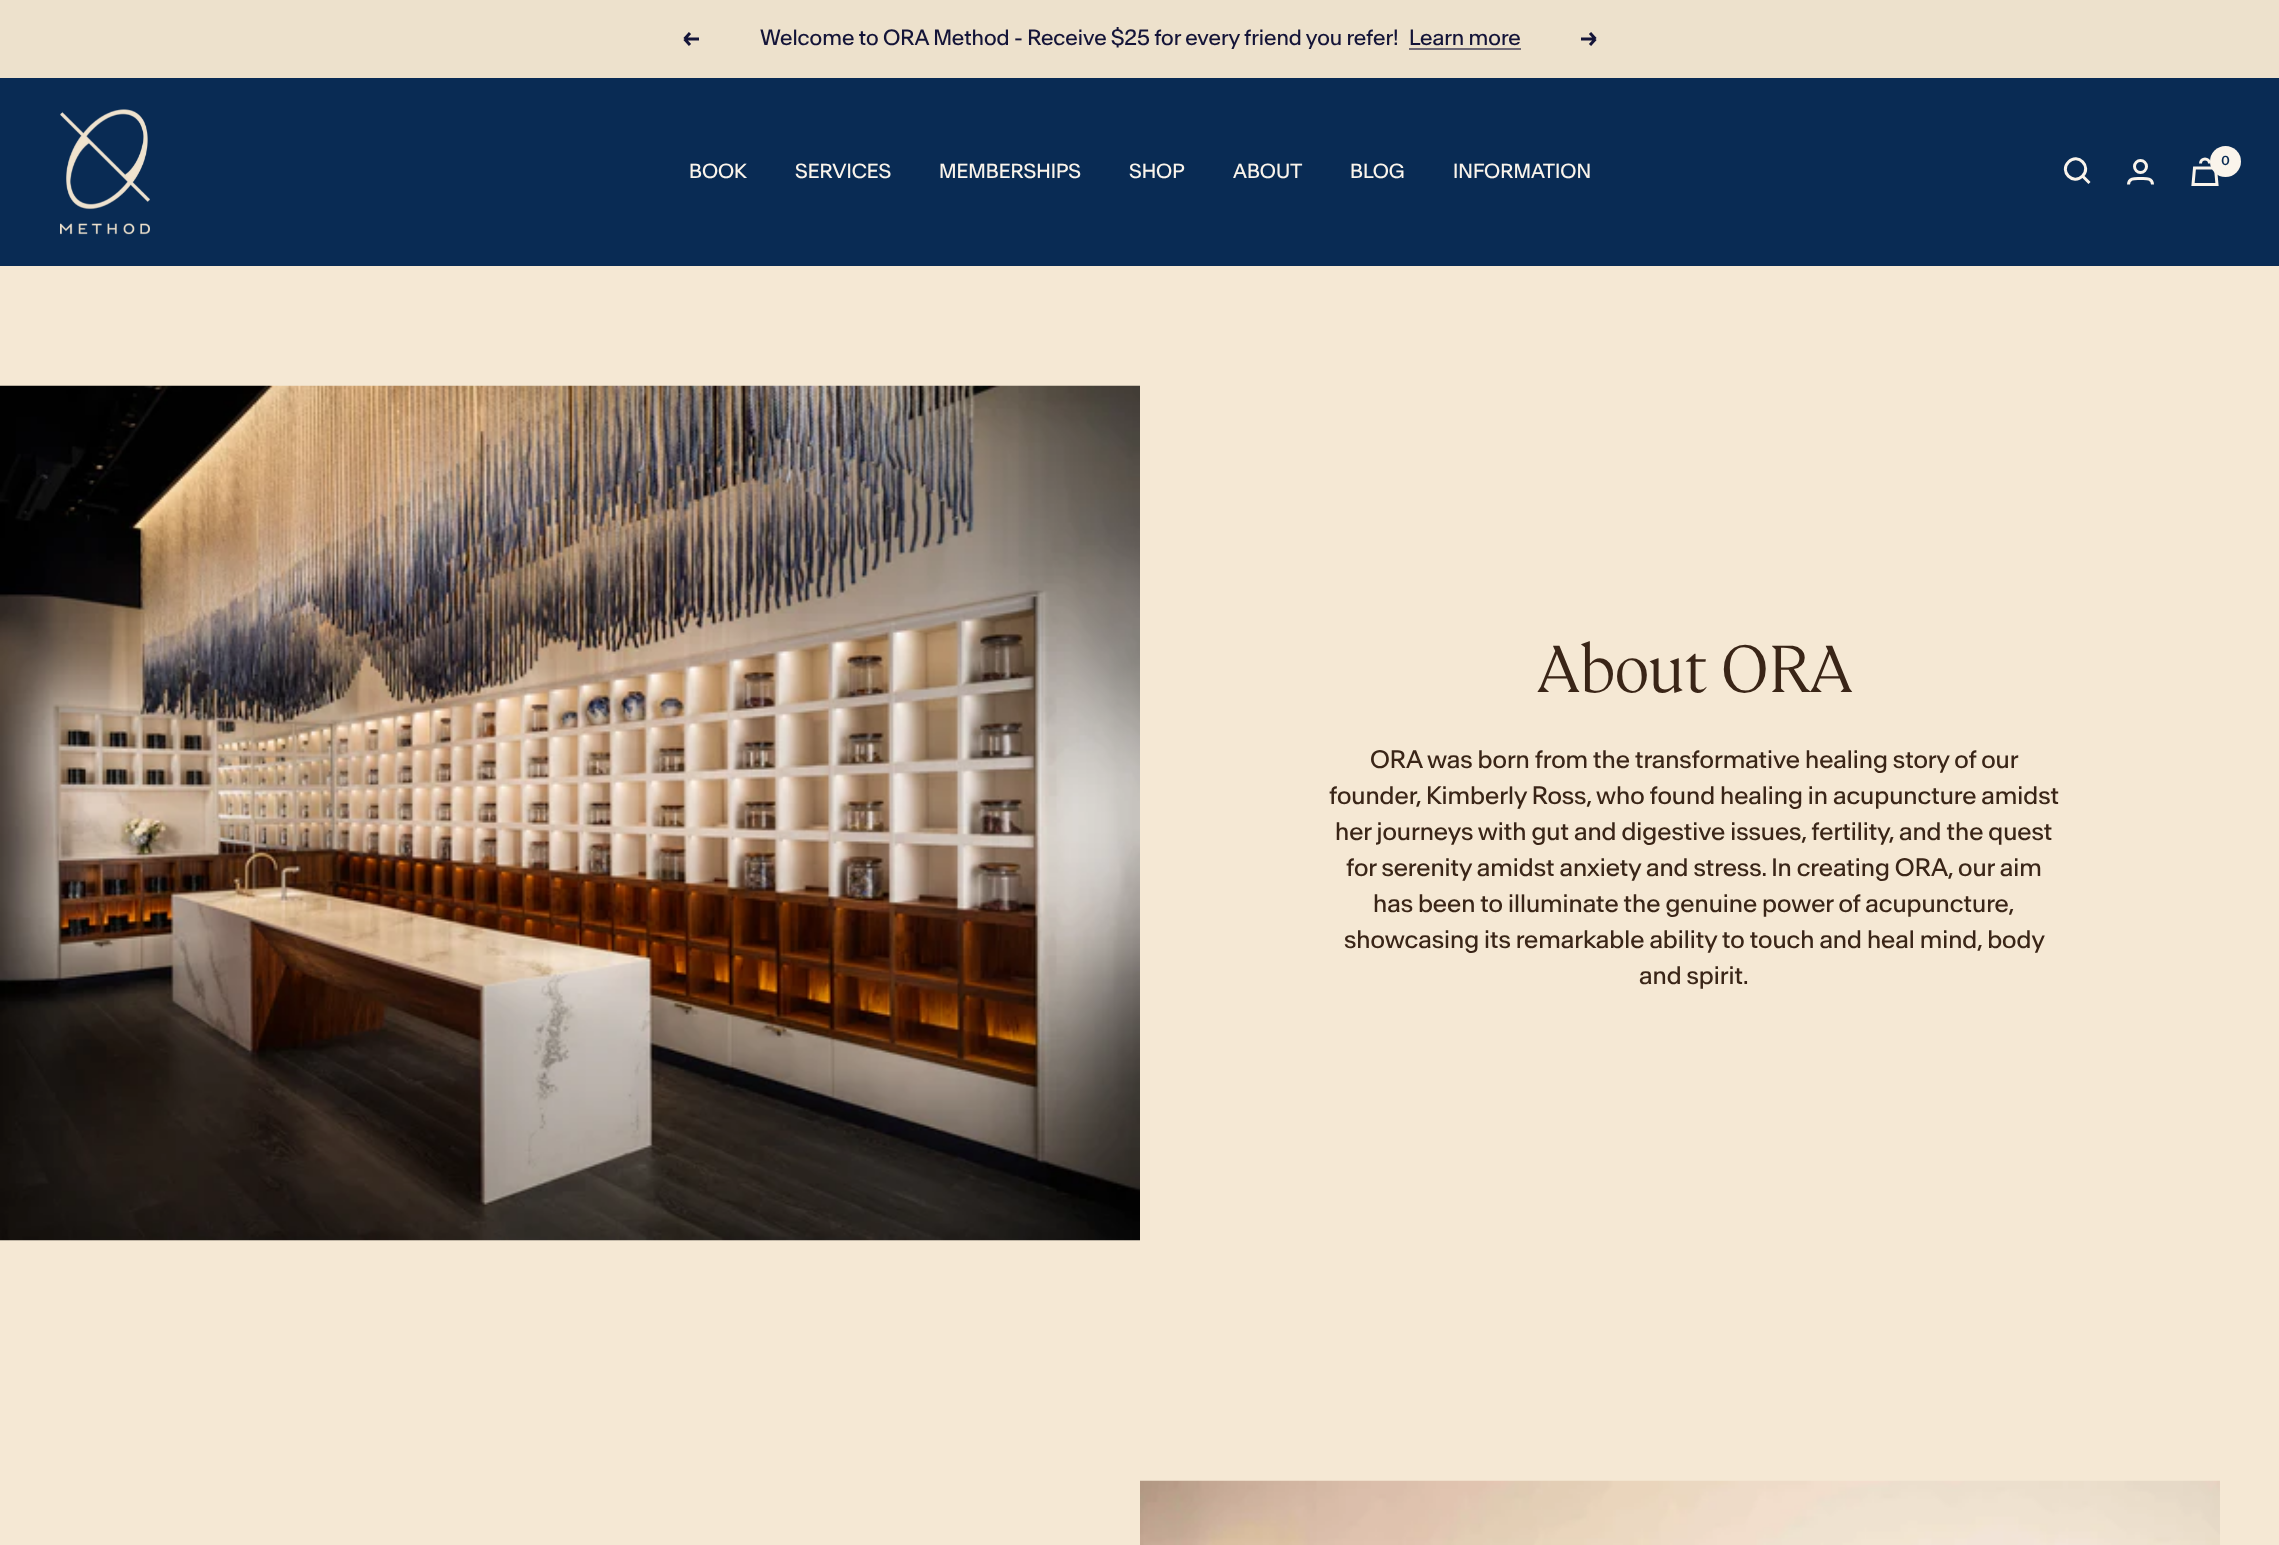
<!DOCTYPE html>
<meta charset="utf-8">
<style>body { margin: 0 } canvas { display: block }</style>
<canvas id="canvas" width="2279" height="1545"></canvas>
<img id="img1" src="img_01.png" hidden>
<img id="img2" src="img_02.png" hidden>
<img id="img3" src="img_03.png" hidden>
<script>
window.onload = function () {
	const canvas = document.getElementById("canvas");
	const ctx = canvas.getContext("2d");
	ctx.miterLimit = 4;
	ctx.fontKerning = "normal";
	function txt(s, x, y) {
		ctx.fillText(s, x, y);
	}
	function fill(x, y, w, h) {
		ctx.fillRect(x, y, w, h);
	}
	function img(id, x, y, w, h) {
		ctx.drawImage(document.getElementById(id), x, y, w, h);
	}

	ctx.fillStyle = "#F5E8D4";
	fill(0, 0, 2279, 1545);
	ctx.fillStyle = "#EDE1CC";
	fill(0, 0, 2279, 78);
	ctx.beginPath();
	ctx.moveTo(699, 39);
	ctx.lineTo(684.5, 39);
	ctx.moveTo(684.5, 39);
	ctx.lineTo(690, 45);
	ctx.moveTo(684.5, 39);
	ctx.lineTo(690, 33);
	ctx.strokeStyle = "#141438";
	ctx.lineWidth = 3;
	ctx.stroke();
	ctx.fillStyle = "#706A76";
	fill(1409, 48, 112, 2);
	ctx.beginPath();
	ctx.moveTo(1581, 39);
	ctx.lineTo(1595.5, 39);
	ctx.moveTo(1595.5, 39);
	ctx.lineTo(1590, 45);
	ctx.moveTo(1595.5, 39);
	ctx.lineTo(1590, 33);
	ctx.stroke();
	ctx.fillStyle = "#092B54";
	fill(0, 78, 2279, 188);
	img("img1", 60, 109, 90, 126);
	ctx.beginPath();
	ctx.moveTo(2082.5, 176);
	ctx.bezierCurveTo(2092, 166.5, 2078, 152.5, 2068.5, 162);
	ctx.bezierCurveTo(2059, 171.5, 2073, 185.5, 2082.5, 176);
	ctx.closePath();
	ctx.moveTo(2082.5, 176);
	ctx.lineTo(2089.5, 183);
	ctx.strokeStyle = "#FAF4EB";
	ctx.stroke();
	ctx.beginPath();
	ctx.arc(2140.5, 166.5, 6, 0, Math.PI * 2);
	ctx.stroke();
	ctx.beginPath();
	ctx.moveTo(2128.5, 184.5);
	ctx.bezierCurveTo(2128.5, 177.5, 2136, 178.5, 2140.5, 178.5);
	ctx.bezierCurveTo(2145, 178.5, 2152.5, 177.5, 2152.5, 184.5);
	ctx.stroke();
	ctx.beginPath();
	ctx.moveTo(2194.5, 168);
	ctx.lineTo(2215.5, 168);
	ctx.lineTo(2217, 184.5);
	ctx.lineTo(2193, 184.5);
	ctx.closePath();
	ctx.moveTo(2209.5, 163.5);
	ctx.bezierCurveTo(2209.5, 157.5, 2200.5, 157.5, 2200.5, 163.5);
	ctx.stroke();
	ctx.fillStyle = "#FAF4EB";
	ctx.beginPath();
	ctx.arc(2225.5, 161.5, 15.5, 0, Math.PI * 2);
	ctx.fill();
	img("img2", 0, 385, 1140, 856);
	img("img3", 1140, 1480, 1080, 65);
	ctx.font = "21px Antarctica";
	ctx.fillStyle = "#141438";
	txt("Welcome to ORA Method - Receive $25 for every friend you refer!", 760, 45);
	txt("Learn more", 1409, 45);
	ctx.font = "bold 14px Quattrocento Sans";
	ctx.fillStyle = "#092B54";
	txt("0", 2221, 165);
	ctx.font = "19.5px Antarctica";
	ctx.fillStyle = "#FAF4EB";
	txt("BOOK", 689, 178);
	txt("SERVICES", 795, 178);
	txt("MEMBERSHIPS", 939, 178);
	txt("SHOP", 1129, 178);
	txt("ABOUT", 1233, 178);
	txt("BLOG", 1350, 178);
	txt("INFORMATION", 1453, 178);
	ctx.letterSpacing = "-1.5px";
	ctx.font = "300 66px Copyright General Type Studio";
	ctx.fillStyle = "#3A2517";
	txt("About ORA", 1537, 692);
	ctx.letterSpacing = "0px";
	ctx.font = "24px Antarctica";
	txt("ORA was born from the transformative healing story of our", 1370, 768);
	txt("founder, Kimberly Ross, who found healing in acupuncture amidst", 1329, 804);
	txt("her journeys with gut and digestive issues, fertility, and the quest", 1335, 840);
	txt("for serenity amidst anxiety and stress. In creating ORA, our aim", 1346, 876);
	txt("has been to illuminate the genuine power of acupuncture,", 1373, 912);
	txt("showcasing its remarkable ability to touch and heal mind, body", 1344, 948);
	txt("and spirit.", 1639, 984);
};
</script>
